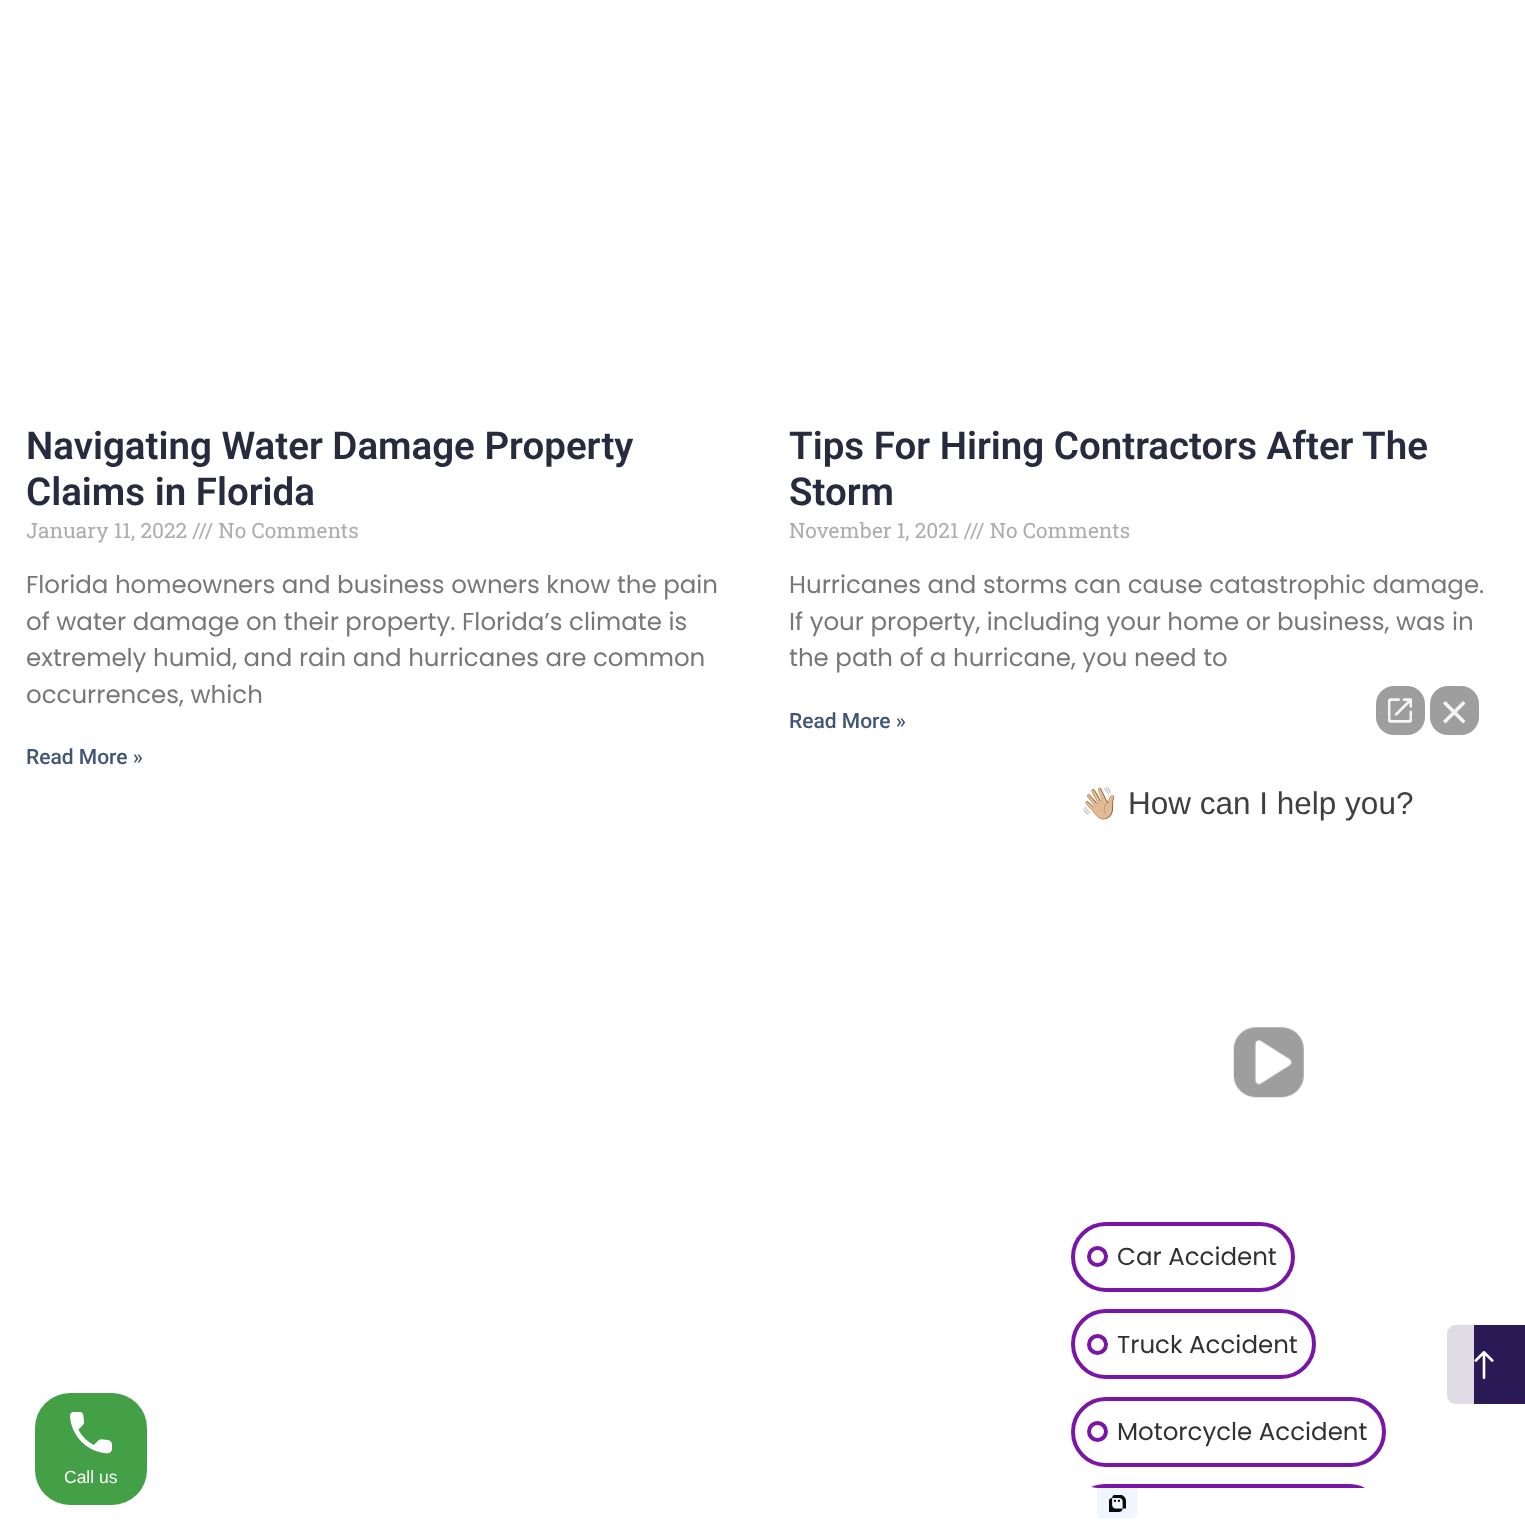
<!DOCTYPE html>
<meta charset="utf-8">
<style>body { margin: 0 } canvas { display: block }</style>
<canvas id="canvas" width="1525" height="1539"></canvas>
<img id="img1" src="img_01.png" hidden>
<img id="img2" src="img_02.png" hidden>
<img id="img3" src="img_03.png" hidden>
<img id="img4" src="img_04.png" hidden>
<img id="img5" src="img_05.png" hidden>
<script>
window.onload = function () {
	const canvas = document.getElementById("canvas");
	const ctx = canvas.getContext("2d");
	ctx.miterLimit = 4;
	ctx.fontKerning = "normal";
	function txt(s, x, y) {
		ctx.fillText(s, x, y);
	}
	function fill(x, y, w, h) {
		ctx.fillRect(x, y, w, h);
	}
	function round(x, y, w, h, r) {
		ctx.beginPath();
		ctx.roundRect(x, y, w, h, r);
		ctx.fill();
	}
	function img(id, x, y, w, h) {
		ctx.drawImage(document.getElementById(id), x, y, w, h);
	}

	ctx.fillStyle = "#FFFFFF";
	fill(0, 0, 1525, 1539);
	ctx.fillStyle = "#291A55";
	ctx.beginPath();
	ctx.moveTo(1456, 1325);
	ctx.lineTo(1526, 1325);
	ctx.lineTo(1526, 1404);
	ctx.lineTo(1456, 1404);
	ctx.bezierCurveTo(1451, 1404, 1447, 1400, 1447, 1395);
	ctx.lineTo(1447, 1334);
	ctx.bezierCurveTo(1447, 1329, 1451, 1325, 1456, 1325);
	ctx.closePath();
	ctx.fill();
	img("img1", 1474, 1351, 20, 28);
	ctx.fillStyle = "rgba(255, 255, 255, 0.85)";
	round(1062, 758, 412, 730, 39);
	ctx.fillStyle = "#9E9E9E";
	round(1376, 686, 49, 49, 18);
	img("img2", 1388, 698, 24, 25);
	round(1430, 686, 49, 49, 18);
	ctx.fillStyle = "#F5F5F5";
	ctx.beginPath();
	ctx.moveTo(1443, 703.5);
	ctx.lineTo(1445.5, 701);
	ctx.lineTo(1465.5, 721);
	ctx.lineTo(1463, 723.5);
	ctx.closePath();
	ctx.fill();
	ctx.beginPath();
	ctx.moveTo(1463, 701);
	ctx.lineTo(1465.5, 703.5);
	ctx.lineTo(1445.5, 723.5);
	ctx.lineTo(1443, 721);
	ctx.closePath();
	ctx.fill();
	img("img3", 1233, 1027, 71, 71);
	ctx.beginPath();
	ctx.roundRect(1073, 1224, 220, 66, 33);
	ctx.strokeStyle = "#7915A7";
	ctx.lineWidth = 4;
	ctx.stroke();
	ctx.beginPath();
	ctx.arc(1097.5, 1256.5, 8.5, 0, Math.PI * 2);
	ctx.stroke();
	ctx.beginPath();
	ctx.roundRect(1073, 1311, 241, 66, 33);
	ctx.stroke();
	ctx.beginPath();
	ctx.arc(1097.5, 1344.5, 8.5, 0, Math.PI * 2);
	ctx.stroke();
	ctx.beginPath();
	ctx.roundRect(1073, 1399, 311, 66, 33);
	ctx.stroke();
	ctx.beginPath();
	ctx.arc(1097.5, 1431.5, 8.5, 0, Math.PI * 2);
	ctx.stroke();
	ctx.fillStyle = "#7915A7";
	ctx.beginPath();
	ctx.moveTo(1106, 1484);
	ctx.bezierCurveTo(1101, 1484, 1095, 1485, 1091, 1487);
	ctx.lineTo(1097, 1488);
	ctx.lineTo(1365, 1488);
	ctx.bezierCurveTo(1360, 1485, 1355, 1484, 1349, 1484);
	ctx.closePath();
	ctx.fill();
	img("img4", 1097, 1488, 41, 31);
	ctx.fillStyle = "#43A047";
	round(35, 1393, 112, 112, 35);
	img("img5", 70, 1412, 42, 42);
	ctx.font = "600 38.5px Roboto";
	ctx.fillStyle = "#262B3E";
	txt("Navigating Water Damage Property", 26, 459);
	txt("Claims in Florida", 26, 505);
	ctx.font = "21px Roboto Slab";
	ctx.fillStyle = "#ADADAD";
	txt("January 11, 2022 /// No Comments", 26, 538);
	ctx.font = "24.5px Poppins";
	ctx.fillStyle = "#777777";
	txt("Florida homeowners and business owners know the pain", 26, 593);
	txt("of water damage on their property. Florida’s climate is", 26, 630);
	txt("extremely humid, and rain and hurricanes are common", 26, 666);
	txt("occurrences, which", 26, 703);
	ctx.font = "500 21px Roboto";
	ctx.fillStyle = "#415674";
	txt("Read More »", 26, 764);
	ctx.font = "600 38.5px Roboto";
	ctx.fillStyle = "#262B3E";
	txt("Tips For Hiring Contractors After The", 789, 459);
	txt("Storm", 789, 505);
	ctx.font = "21px Roboto Slab";
	ctx.fillStyle = "#ADADAD";
	txt("November 1, 2021 /// No Comments", 789, 538);
	ctx.font = "24.5px Poppins";
	ctx.fillStyle = "#777777";
	txt("Hurricanes and storms can cause catastrophic damage.", 789, 593);
	txt("If your property, including your home or business, was in", 789, 630);
	txt("the path of a hurricane, you need to", 789, 666);
	ctx.font = "500 21px Roboto";
	ctx.fillStyle = "#415674";
	txt("Read More »", 789, 728);
	ctx.font = "31.5px Noto Color Emoji";
	ctx.fillStyle = "#3F3F3F";
	txt("👋🏼", 1080, 814);
	ctx.font = "31.5px Liberation Sans";
	txt("How can I help you?", 1128, 814);
	ctx.font = "24.5px Poppins";
	ctx.fillStyle = "#313131";
	txt("Car Accident", 1117, 1265);
	txt("Truck Accident", 1117, 1353);
	txt("Motorcycle Accident", 1117, 1440);
	ctx.font = "17.5px Liberation Sans";
	ctx.fillStyle = "#FFFFFF";
	txt("Call us", 64, 1483);
};
</script>
